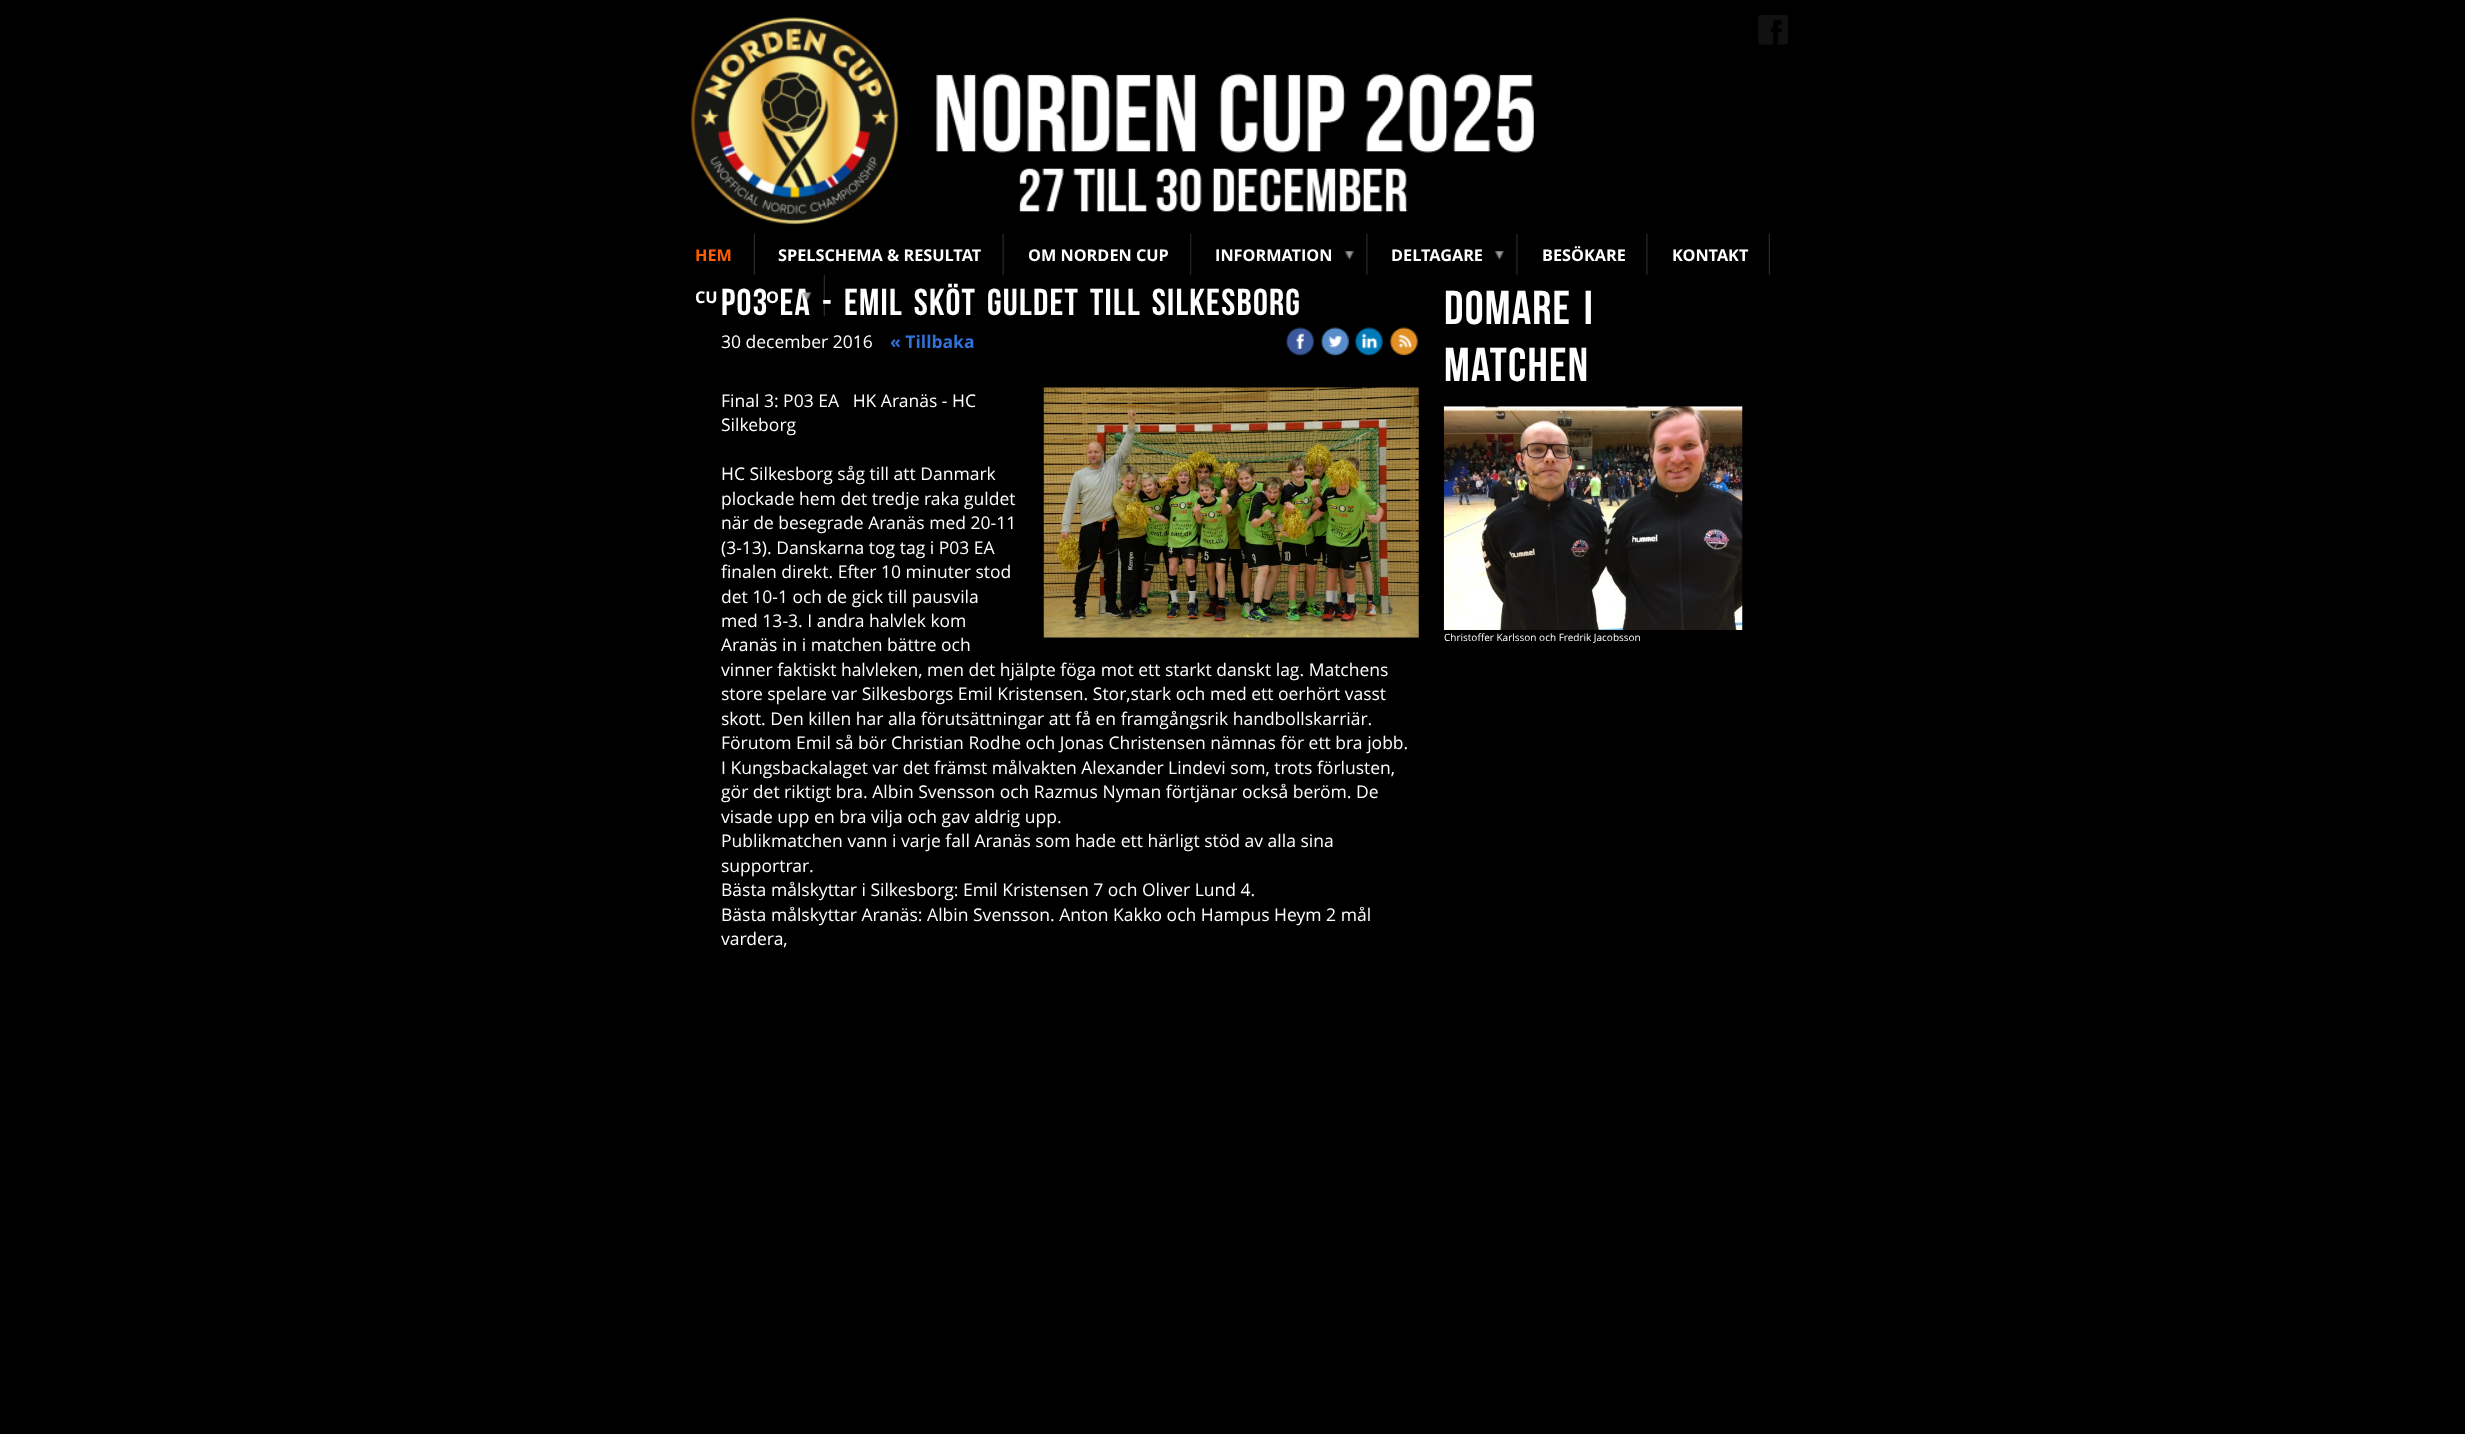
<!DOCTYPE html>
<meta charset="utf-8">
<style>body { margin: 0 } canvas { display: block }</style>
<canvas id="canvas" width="2465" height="1434"></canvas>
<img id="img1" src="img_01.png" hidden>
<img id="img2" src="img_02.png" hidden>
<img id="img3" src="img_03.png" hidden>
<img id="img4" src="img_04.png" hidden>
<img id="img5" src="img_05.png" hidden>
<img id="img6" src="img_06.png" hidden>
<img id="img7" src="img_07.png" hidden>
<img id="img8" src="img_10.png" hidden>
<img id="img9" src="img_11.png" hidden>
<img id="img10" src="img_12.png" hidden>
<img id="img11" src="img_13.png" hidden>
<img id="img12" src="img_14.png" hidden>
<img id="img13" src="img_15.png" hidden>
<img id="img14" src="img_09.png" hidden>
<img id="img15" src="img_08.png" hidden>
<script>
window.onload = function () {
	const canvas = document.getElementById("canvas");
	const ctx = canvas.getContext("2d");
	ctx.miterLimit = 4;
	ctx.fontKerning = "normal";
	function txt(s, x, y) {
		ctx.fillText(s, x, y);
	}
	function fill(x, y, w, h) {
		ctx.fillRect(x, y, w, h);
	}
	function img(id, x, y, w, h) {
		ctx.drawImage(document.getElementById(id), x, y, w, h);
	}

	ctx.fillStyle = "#000000";
	fill(0, 0, 2465, 1434);
	img("img1", 690, 17, 844, 208);
	img("img2", 1758, 15, 30, 30);
	img("img3", 753, 233, 2, 42);
	img("img4", 1002, 233, 2, 42);
	img("img5", 1190, 233, 2, 42);
	img("img6", 1366, 233, 2, 42);
	img("img7", 1345, 251, 9, 9);
	img("img6", 1516, 233, 2, 42);
	img("img7", 1495, 251, 9, 9);
	img("img6", 1646, 233, 2, 42);
	img("img3", 1768, 233, 2, 42);
	img("img8", 1286, 327, 28, 29);
	img("img9", 1321, 327, 28, 29);
	img("img10", 1354, 327, 29, 29);
	img("img11", 1389, 327, 29, 29);
	img("img12", 1043, 387, 376, 251);
	img("img13", 1443, 406, 300, 224);
	ctx.font = "bold 16.25px Open Sans";
	ctx.fillStyle = "#FF5E00";
	txt("HEM", 695, 261);
	ctx.fillStyle = "#FFFFFF";
	txt("SPELSCHEMA & RESULTAT", 778, 261);
	txt("OM NORDEN CUP", 1028, 261);
	txt("INFORMATION", 1215, 261);
	txt("DELTAGARE", 1391, 261);
	txt("BESÖKARE", 1542, 261);
	txt("KONTAKT", 1672, 261);
	txt("CU", 695, 303);
	ctx.letterSpacing = "1.25px";
	ctx.wordSpacing = "3.75px";
	ctx.font = "37.5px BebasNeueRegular";
	txt("P03 EA - Emil sköt guldet till Silkesborg", 721, 315);
	ctx.letterSpacing = "0px";
	ctx.wordSpacing = "0px";
	ctx.font = "bold 16.25px Open Sans";
	txt("O", 766, 303);
	img("img14", 802, 292, 10, 9);
	img("img15", 823, 275, 2, 42);
	ctx.font = "17.5px Open Sans";
	txt("30 december 2016", 721, 348);
	ctx.font = "bold 17.5px Open Sans";
	ctx.fillStyle = "#3170D4";
	txt("« Tillbaka", 890, 348);
	ctx.font = "17.5px Open Sans";
	ctx.fillStyle = "#FFFFFF";
	txt("Final 3: P03 EA   HK Aranäs - HC", 721, 407);
	txt("Silkeborg", 721, 431);
	txt("HC Silkesborg såg till att Danmark", 721, 480);
	txt("plockade hem det tredje raka guldet", 721, 505);
	txt("när de besegrade Aranäs med 20-11", 721, 529);
	txt("(3-13). Danskarna tog tag i P03 EA", 721, 554);
	txt("finalen direkt. Efter 10 minuter stod", 721, 578);
	txt("det 10-1 och de gick till pausvila", 721, 603);
	txt("med 13-3. I andra halvlek kom", 721, 627);
	txt("Aranäs in i matchen bättre och", 721, 651);
	txt("vinner faktiskt halvleken, men det hjälpte föga mot ett starkt danskt lag. Matchens", 721, 676);
	txt("store spelare var Silkesborgs Emil Kristensen. Stor,stark och med ett oerhört vasst", 721, 700);
	txt("skott. Den killen har alla förutsättningar att få en framgångsrik handbollskarriär.", 721, 725);
	txt("Förutom Emil så bör Christian Rodhe och Jonas Christensen nämnas för ett bra jobb.", 721, 749);
	txt("I Kungsbackalaget var det främst målvakten Alexander Lindevi som, trots förlusten,", 721, 774);
	txt("gör det riktigt bra. Albin Svensson och Razmus Nyman förtjänar också beröm. De", 721, 798);
	txt("visade upp en bra vilja och gav aldrig upp.", 721, 823);
	txt("Publikmatchen vann i varje fall Aranäs som hade ett härligt stöd av alla sina", 721, 847);
	txt("supportrar.", 721, 872);
	txt("Bästa målskyttar i Silkesborg: Emil Kristensen 7 och Oliver Lund 4.", 721, 896);
	txt("Bästa målskyttar Aranäs: Albin Svensson. Anton Kakko och Hampus Heym 2 mål", 721, 921);
	txt("vardera,", 721, 945);
	ctx.letterSpacing = "1.25px";
	ctx.wordSpacing = "3.75px";
	ctx.font = "47.5px BebasNeueRegular";
	txt("Domare i", 1444, 324);
	ctx.wordSpacing = "0px";
	txt("matchen", 1444, 381);
	ctx.letterSpacing = "0px";
	ctx.font = "10px Open Sans";
	txt("Christoffer Karlsson och Fredrik Jacobsson", 1444, 641);
};
</script>
